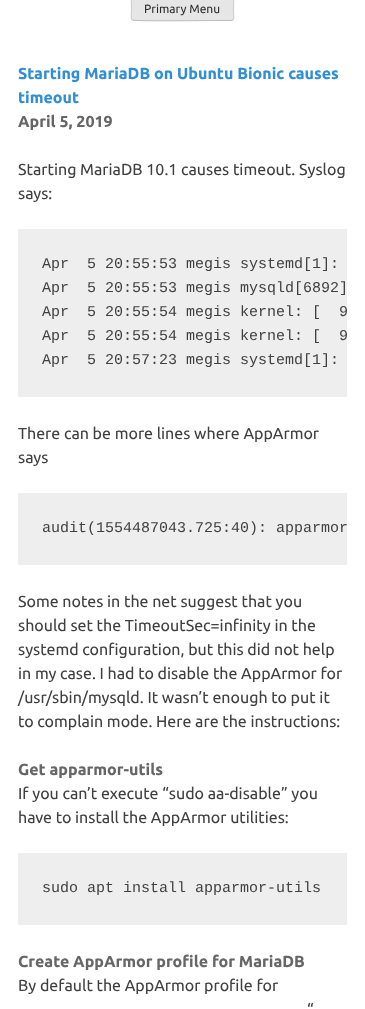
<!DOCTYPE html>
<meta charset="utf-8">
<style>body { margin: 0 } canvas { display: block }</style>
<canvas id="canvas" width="365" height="1009"></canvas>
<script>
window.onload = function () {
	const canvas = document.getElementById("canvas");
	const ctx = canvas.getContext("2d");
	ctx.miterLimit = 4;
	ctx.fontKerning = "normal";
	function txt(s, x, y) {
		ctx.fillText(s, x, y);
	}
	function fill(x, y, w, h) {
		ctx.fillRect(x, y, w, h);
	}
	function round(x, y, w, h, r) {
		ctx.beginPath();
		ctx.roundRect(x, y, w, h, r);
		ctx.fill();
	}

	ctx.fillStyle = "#FFFFFF";
	fill(0, 0, 365, 1009);
	ctx.fillStyle = "#E6E6E6";
	round(131, -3, 103, 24, 3);
	ctx.beginPath();
	ctx.moveTo(233, 20);
	ctx.lineTo(231, 20.5);
	ctx.lineTo(215, 20.5);
	ctx.bezierCurveTo(206.5, 20.5, 134.5, 21.5, 132.5, 20);
	ctx.lineTo(132, 20);
	ctx.strokeStyle = "#BBBBBB";
	ctx.stroke();
	ctx.beginPath();
	ctx.moveTo(132, 20);
	ctx.bezierCurveTo(130.5, 18, 131.5, 13.5, 131.5, 11.5);
	ctx.bezierCurveTo(131.5, -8.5, 128, -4.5, 150, -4.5);
	ctx.lineTo(215, -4.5);
	ctx.bezierCurveTo(237, -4.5, 233.5, -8.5, 233.5, 11.5);
	ctx.bezierCurveTo(233.5, 13.5, 234.5, 18, 233, 20);
	ctx.strokeStyle = "#CCCCCC";
	ctx.stroke();
	ctx.fillStyle = "#EEEEEE";
	fill(18, 229, 329, 168);
	fill(18, 493, 329, 72);
	fill(18, 853, 329, 72);
	ctx.font = "12px Ubuntu";
	ctx.fillStyle = "#2E2E2E";
	txt("Primary Menu", 144, 13);
	ctx.font = "bold 16px Ubuntu";
	ctx.fillStyle = "#2F8ED5";
	txt("Starting MariaDB on Ubuntu Bionic causes", 18, 79);
	txt("timeout", 18, 103);
	ctx.fillStyle = "#666666";
	txt("April 5, 2019", 18, 127);
	ctx.font = "16px Ubuntu";
	ctx.fillStyle = "#404040";
	txt("Starting MariaDB 10.1 causes timeout. Syslog", 18, 175);
	txt("says:", 18, 199);
	ctx.font = "15px Liberation Mono";
	txt("Apr  5 20:55:53 megis systemd[1]:", 42, 268);
	txt("Apr  5 20:55:53 megis mysqld[6892]", 42, 292);
	ctx.save();
	ctx.beginPath();
	ctx.rect(18, 229, 329, 168);
	ctx.clip();
	txt("Apr  5 20:55:54 megis kernel: [  9", 42, 316);
	txt("Apr  5 20:55:54 megis kernel: [  9", 42, 340);
	ctx.restore();
	txt("Apr  5 20:57:23 megis systemd[1]:", 42, 364);
	ctx.font = "16px Ubuntu";
	txt("There can be more lines where AppArmor", 18, 439);
	txt("says", 18, 463);
	ctx.font = "15px Liberation Mono";
	txt("audit(1554487043.725:40): apparmor", 42, 532);
	ctx.font = "16px Ubuntu";
	txt("Some notes in the net suggest that you", 18, 607);
	txt("should set the TimeoutSec=infinity in the", 18, 631);
	txt("systemd configuration, but this did not help", 18, 655);
	txt("in my case. I had to disable the AppArmor for", 18, 679);
	txt("/usr/sbin/mysqld. It wasn’t enough to put it", 18, 703);
	txt("to complain mode. Here are the instructions:", 18, 727);
	ctx.font = "bold 16px Ubuntu";
	ctx.fillStyle = "#666666";
	txt("Get apparmor-utils", 18, 775);
	ctx.font = "16px Ubuntu";
	ctx.fillStyle = "#404040";
	txt("If you can’t execute “sudo aa-disable” you", 18, 799);
	txt("have to install the AppArmor utilities:", 18, 823);
	ctx.font = "15px Liberation Mono";
	txt("sudo apt install apparmor-utils", 42, 892);
	ctx.font = "bold 16px Ubuntu";
	ctx.fillStyle = "#666666";
	txt("Create AppArmor profile for MariaDB", 18, 967);
	ctx.font = "16px Ubuntu";
	ctx.fillStyle = "#404040";
	txt("By default the AppArmor profile for", 18, 991);
	txt("“", 307, 1015);
};
</script>
